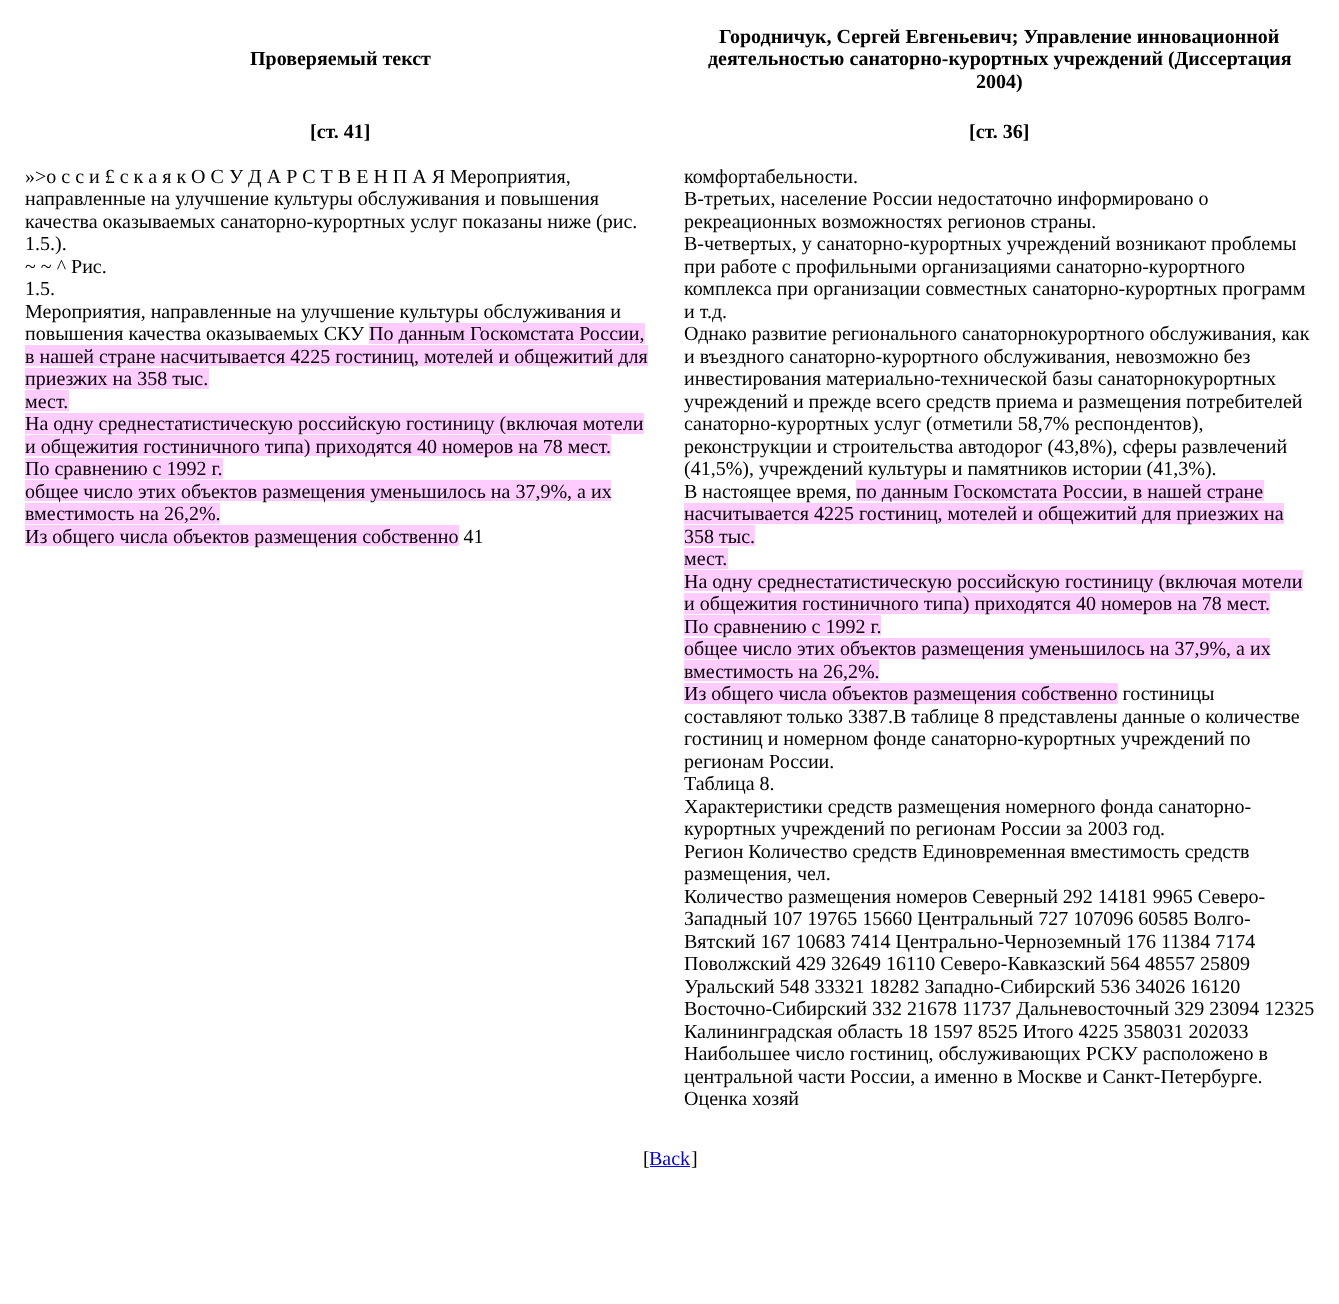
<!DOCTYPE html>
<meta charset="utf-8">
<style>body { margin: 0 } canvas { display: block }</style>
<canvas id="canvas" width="1339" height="1304"></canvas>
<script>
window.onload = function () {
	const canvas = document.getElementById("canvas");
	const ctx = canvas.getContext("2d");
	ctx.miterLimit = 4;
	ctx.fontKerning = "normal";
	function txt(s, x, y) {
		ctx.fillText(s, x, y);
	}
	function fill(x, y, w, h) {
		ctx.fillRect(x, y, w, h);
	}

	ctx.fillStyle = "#FFFFFF";
	fill(0, 0, 1339, 1304);
	ctx.fillStyle = "#FFCCFF";
	fill(369, 323, 276, 21);
	fill(25, 345, 623, 21);
	fill(25, 368, 184, 21);
	fill(25, 390, 44, 21);
	fill(25, 413, 619, 21);
	fill(25, 435, 586, 21);
	fill(25, 458, 198, 21);
	fill(25, 480, 586, 21);
	fill(25, 503, 195, 21);
	fill(25, 525, 434, 21);
	fill(856, 480, 408, 21);
	fill(684, 503, 600, 21);
	fill(684, 525, 71, 21);
	fill(684, 548, 44, 21);
	fill(684, 570, 619, 21);
	fill(684, 593, 586, 21);
	fill(684, 615, 197, 21);
	fill(684, 638, 586, 21);
	fill(684, 660, 195, 21);
	fill(684, 683, 434, 21);
	ctx.fillStyle = "#0000EE";
	fill(650, 1166, 40, 1);
	ctx.font = "bold 20px Liberation Serif";
	ctx.fillStyle = "#000000";
	txt("Проверяемый текст", 250, 65);
	txt("Городничук, Сергей Евгеньевич; Управление инновационной", 719, 43);
	txt("деятельностью санаторно-курортных учреждений (Диссертация", 708, 65);
	txt("2004)", 976, 88);
	txt("[ст. 41]", 310, 138);
	ctx.font = "20px Liberation Serif";
	txt("»>о с с и £ с к а я к О С У Д А Р С Т В Е Н П А Я Мероприятия,", 25, 183);
	txt("направленные на улучшение культуры обслуживания и повышения", 25, 205);
	txt("качества оказываемых санаторно-курортных услуг показаны ниже (рис.", 25, 228);
	txt("1.5.).", 25, 250);
	txt("~ ~ ^ Рис.", 25, 273);
	txt("1.5.", 25, 295);
	txt("Мероприятия, направленные на улучшение культуры обслуживания и", 25, 318);
	txt("повышения качества оказываемых СКУ", 25, 340);
	txt("По данным Госкомстата России,", 369, 340);
	txt("в нашей стране насчитывается 4225 гостиниц, мотелей и общежитий для", 25, 363);
	txt("приезжих на 358 тыс.", 25, 385);
	txt("мест.", 25, 408);
	txt("На одну среднестатистическую российскую гостиницу (включая мотели", 25, 430);
	txt("и общежития гостиничного типа) приходятся 40 номеров на 78 мест.", 25, 453);
	txt("По сравнению с 1992 г.", 25, 475);
	txt("общее число этих объектов размещения уменьшилось на 37,9%, а их", 25, 498);
	txt("вместимость на 26,2%.", 25, 520);
	txt("Из общего числа объектов размещения собственно 41", 25, 543);
	ctx.font = "bold 20px Liberation Serif";
	txt("[ст. 36]", 969, 138);
	ctx.font = "20px Liberation Serif";
	txt("комфортабельности.", 684, 183);
	txt("В-третьих, население России недостаточно информировано о", 684, 205);
	txt("рекреационных возможностях регионов страны.", 684, 228);
	txt("В-четвертых, у санаторно-курортных учреждений возникают проблемы", 684, 250);
	txt("при работе с профильными организациями санаторно-курортного", 684, 273);
	txt("комплекса при организации совместных санаторно-курортных программ", 684, 295);
	txt("и т.д.", 684, 318);
	txt("Однако развитие регионального санаторнокурортного обслуживания, как", 684, 340);
	txt("и въездного санаторно-курортного обслуживания, невозможно без", 684, 363);
	txt("инвестирования материально-технической базы санаторнокурортных", 684, 385);
	txt("учреждений и прежде всего средств приема и размещения потребителей", 684, 408);
	txt("санаторно-курортных услуг (отметили 58,7% респондентов),", 684, 430);
	txt("реконструкции и строительства автодорог (43,8%), сферы развлечений", 684, 453);
	txt("(41,5%), учреждений культуры и памятников истории (41,3%).", 684, 475);
	txt("В настоящее время,", 684, 498);
	txt("по данным Госкомстата России, в нашей стране", 856, 498);
	txt("насчитывается 4225 гостиниц, мотелей и общежитий для приезжих на", 684, 520);
	txt("358 тыс.", 684, 543);
	txt("мест.", 684, 565);
	txt("На одну среднестатистическую российскую гостиницу (включая мотели", 684, 588);
	txt("и общежития гостиничного типа) приходятся 40 номеров на 78 мест.", 684, 610);
	txt("По сравнению с 1992 г.", 684, 633);
	txt("общее число этих объектов размещения уменьшилось на 37,9%, а их", 684, 655);
	txt("вместимость на 26,2%.", 684, 678);
	txt("Из общего числа объектов размещения собственно гостиницы", 684, 700);
	txt("составляют только 3387.В таблице 8 представлены данные о количестве", 684, 723);
	txt("гостиниц и номерном фонде санаторно-курортных учреждений по", 684, 745);
	txt("регионам России.", 684, 768);
	txt("Таблица 8.", 684, 790);
	txt("Характеристики средств размещения номерного фонда санаторно-", 684, 813);
	txt("курортных учреждений по регионам России за 2003 год.", 684, 835);
	txt("Регион Количество средств Единовременная вместимость средств", 684, 858);
	txt("размещения, чел.", 684, 880);
	txt("Количество размещения номеров Северный 292 14181 9965 Северо-", 684, 903);
	txt("Западный 107 19765 15660 Центральный 727 107096 60585 Волго-", 684, 925);
	txt("Вятский 167 10683 7414 Центрально-Черноземный 176 11384 7174", 684, 948);
	txt("Поволжский 429 32649 16110 Северо-Кавказский 564 48557 25809", 684, 970);
	txt("Уральский 548 33321 18282 Западно-Сибирский 536 34026 16120", 684, 993);
	txt("Восточно-Сибирский 332 21678 11737 Дальневосточный 329 23094 12325", 684, 1015);
	txt("Калининградская область 18 1597 8525 Итого 4225 358031 202033", 684, 1038);
	txt("Наибольшее число гостиниц, обслуживающих РСКУ расположено в", 684, 1060);
	txt("центральной части России, а именно в Москве и Санкт-Петербурге.", 684, 1083);
	txt("Оценка хозяй", 684, 1105);
	txt("[", 643, 1165);
	ctx.fillStyle = "#0000EE";
	txt("Back", 649, 1165);
	ctx.fillStyle = "#000000";
	txt("]", 691, 1165);
};
</script>
